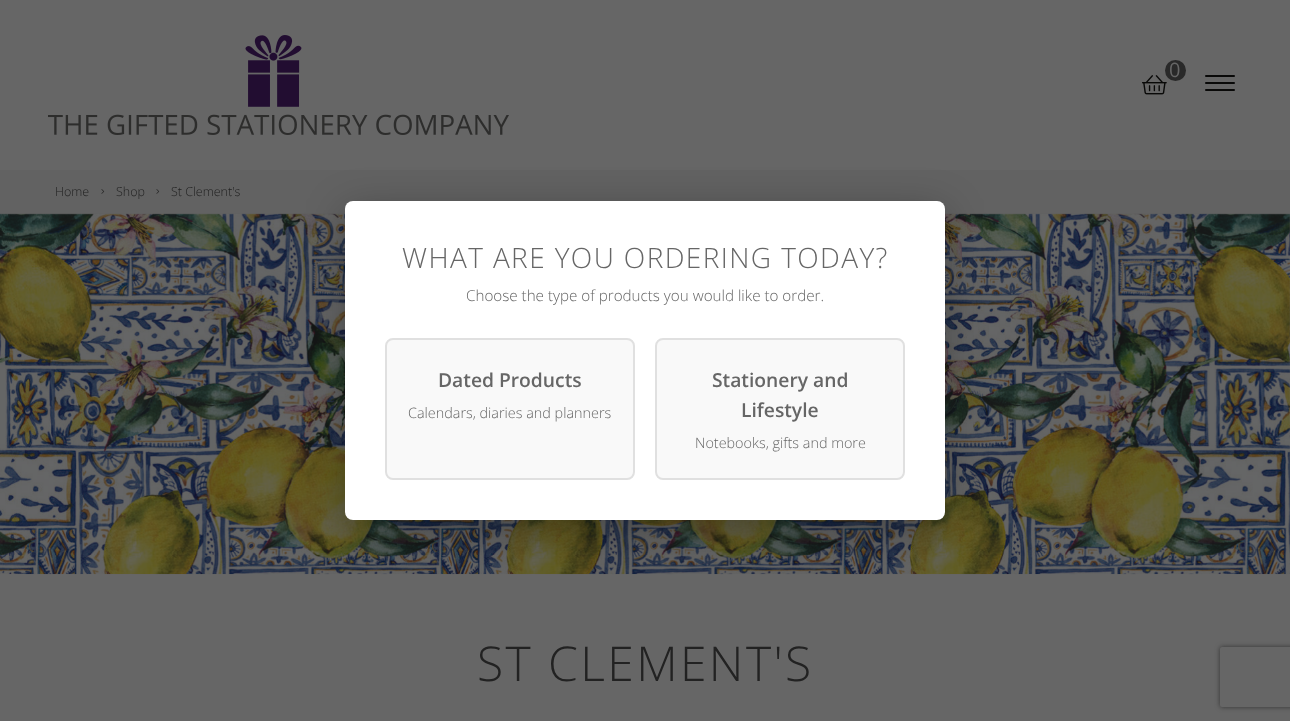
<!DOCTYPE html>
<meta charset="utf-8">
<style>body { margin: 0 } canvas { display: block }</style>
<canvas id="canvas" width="1290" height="721"></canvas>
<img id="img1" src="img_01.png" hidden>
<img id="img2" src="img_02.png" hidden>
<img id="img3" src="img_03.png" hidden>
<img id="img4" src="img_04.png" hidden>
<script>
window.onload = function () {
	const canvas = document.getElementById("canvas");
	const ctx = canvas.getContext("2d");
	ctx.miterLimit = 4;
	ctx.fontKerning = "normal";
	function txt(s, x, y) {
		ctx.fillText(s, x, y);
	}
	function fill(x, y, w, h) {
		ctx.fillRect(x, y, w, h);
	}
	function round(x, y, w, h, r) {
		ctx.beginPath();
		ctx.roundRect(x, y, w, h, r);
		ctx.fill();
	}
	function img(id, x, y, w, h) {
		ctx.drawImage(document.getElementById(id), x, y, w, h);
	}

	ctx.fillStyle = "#666666";
	fill(0, 0, 1290, 721);
	img("img1", 48, 35, 461, 100);
	img("img2", 1142, 75, 25, 20);
	ctx.fillStyle = "#292929";
	ctx.beginPath();
	ctx.arc(1175.5, 70.5, 10.5, 0, Math.PI * 2);
	ctx.fill();
	ctx.fillStyle = "#090908";
	round(1205, 89, 30, 2, 1);
	round(1205, 75, 30, 2, 1);
	round(1205, 82, 30, 2, 1);
	ctx.fillStyle = "#626262";
	fill(0, 170, 1290, 44);
	img("img3", 101, 189, 4, 5);
	img("img3", 156, 189, 4, 5);
	img("img4", 0, 213, 1290, 362);
	ctx.fillStyle = "rgba(0, 0, 0, 0.3)";
	ctx.filter = "blur(20px)";
	ctx.beginPath();
	ctx.roundRect(345, 211, 600, 319, 8);
	ctx.fill();
	ctx.filter = "none";
	ctx.fillStyle = "#FFFFFF";
	round(345, 201, 600, 319, 8);
	ctx.fillStyle = "#F9F9F9";
	ctx.beginPath();
	ctx.roundRect(386, 339, 248, 140, 7);
	ctx.fill();
	ctx.strokeStyle = "#E0E0E0";
	ctx.lineWidth = 2;
	ctx.stroke();
	ctx.beginPath();
	ctx.roundRect(656, 339, 248, 140, 7);
	ctx.fill();
	ctx.stroke();
	ctx.save();
	ctx.beginPath();
	ctx.moveTo(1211, 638);
	ctx.lineTo(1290, 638);
	ctx.lineTo(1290, 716);
	ctx.lineTo(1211, 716);
	ctx.closePath();
	ctx.moveTo(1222, 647);
	ctx.lineTo(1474, 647);
	ctx.bezierCurveTo(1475, 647, 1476, 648, 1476, 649);
	ctx.lineTo(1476, 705);
	ctx.bezierCurveTo(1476, 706, 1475, 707, 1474, 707);
	ctx.lineTo(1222, 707);
	ctx.bezierCurveTo(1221, 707, 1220, 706, 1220, 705);
	ctx.lineTo(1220, 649);
	ctx.bezierCurveTo(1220, 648, 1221, 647, 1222, 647);
	ctx.closePath();
	ctx.clip("evenodd");
	ctx.fillStyle = "#333333";
	ctx.filter = "blur(2.5px)";
	ctx.beginPath();
	ctx.roundRect(1220, 647, 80, 60, 2);
	ctx.fill();
	ctx.filter = "none";
	ctx.restore();
	ctx.font = "20px Open Sans";
	ctx.fillStyle = "#666666";
	txt("0", 1169, 77);
	ctx.font = "300 12.5px Open Sans";
	ctx.fillStyle = "#222222";
	txt("Home", 55, 196);
	txt("Shop", 116, 196);
	txt("St Clement's", 171, 196);
	ctx.letterSpacing = "2.4px";
	ctx.font = "300 48px Open Sans";
	txt("ST CLEMENT'S", 477, 681);
	ctx.letterSpacing = "1.4px";
	ctx.font = "300 28px Open Sans";
	ctx.fillStyle = "#666666";
	txt("WHAT ARE YOU ORDERING TODAY?", 402, 268);
	ctx.letterSpacing = "0px";
	ctx.font = "300 15.2px Open Sans";
	txt("Choose the type of products you would like to order.", 466, 301);
	ctx.font = "600 19.25px Open Sans";
	txt("Dated Products", 438, 387);
	ctx.font = "300 14.4px Open Sans";
	txt("Calendars, diaries and planners", 408, 418);
	ctx.font = "600 19.25px Open Sans";
	txt("Stationery and", 712, 387);
	txt("Lifestyle", 741, 417);
	ctx.font = "300 14.4px Open Sans";
	txt("Notebooks, gifts and more", 695, 448);
};
</script>
